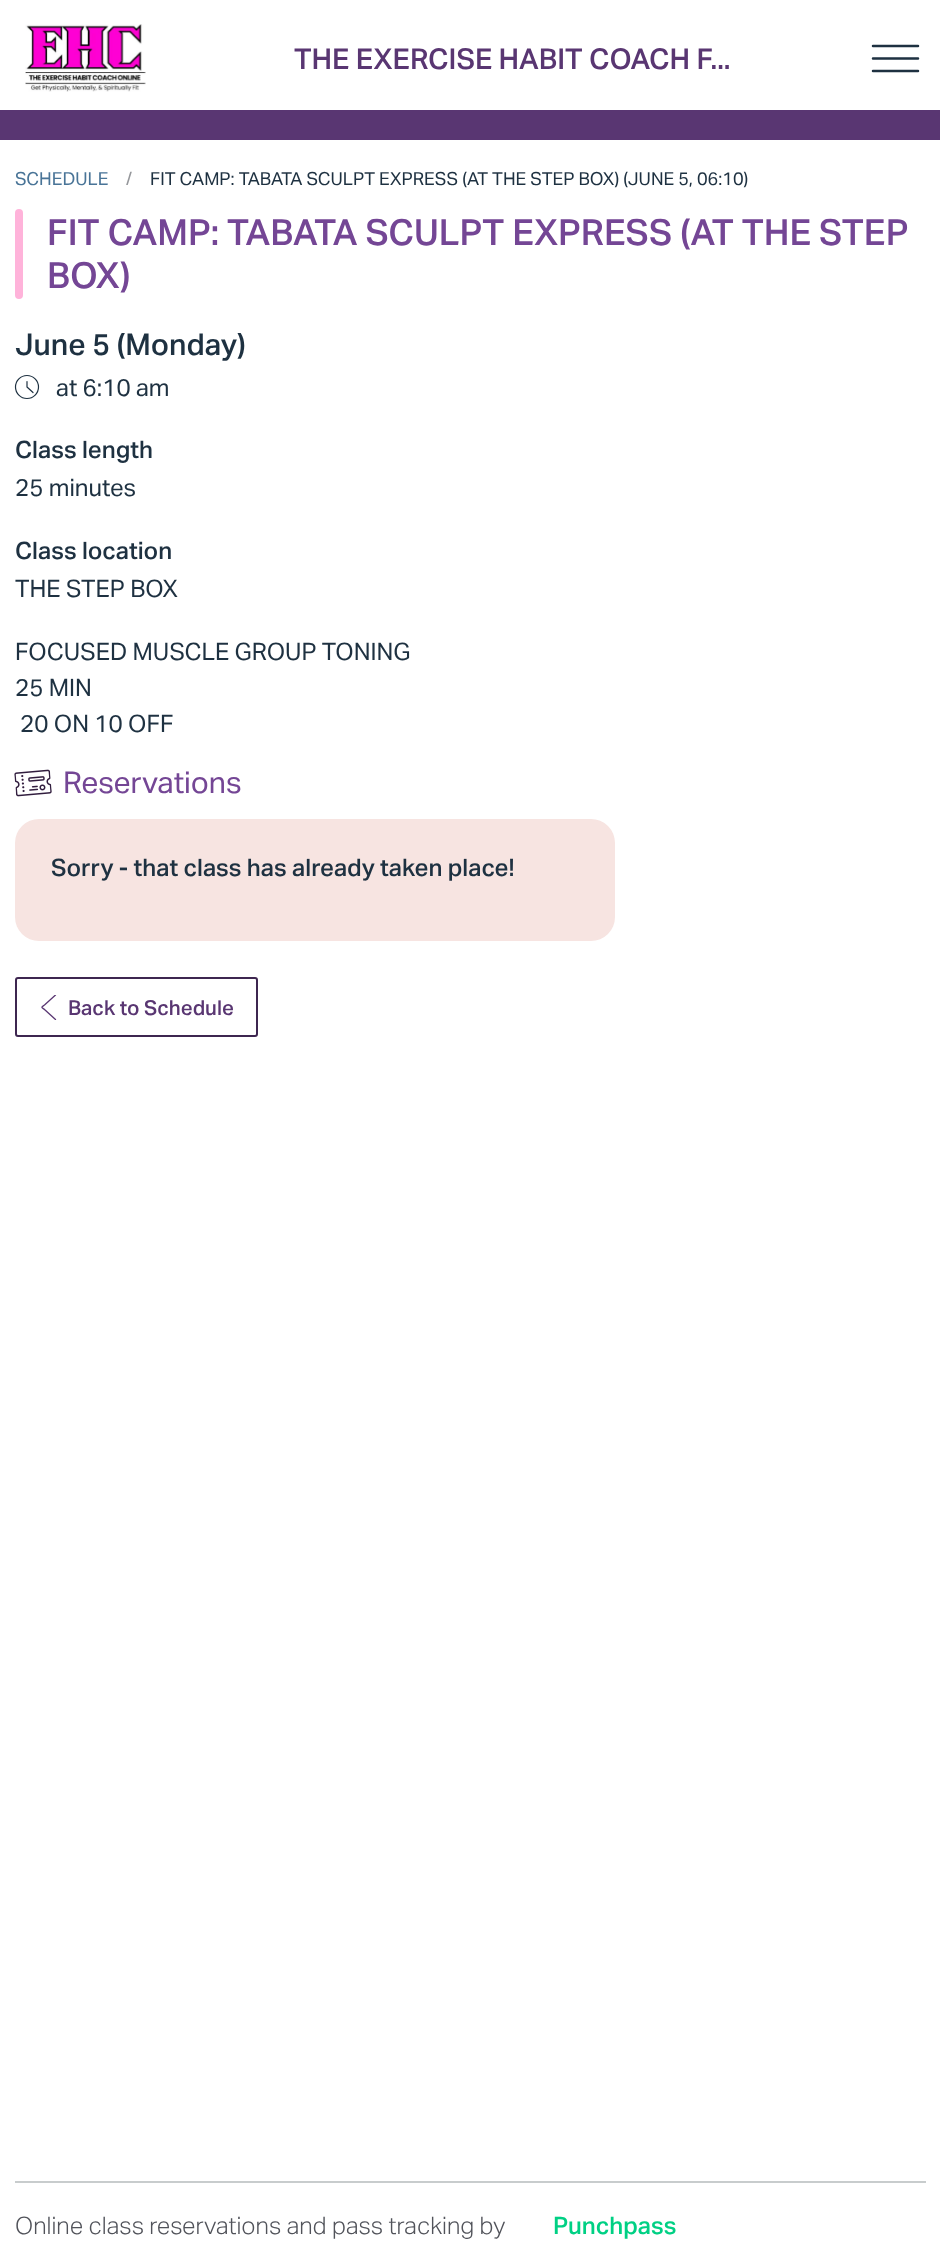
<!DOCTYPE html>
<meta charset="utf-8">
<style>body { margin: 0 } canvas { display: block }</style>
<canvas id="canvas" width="940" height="2266"></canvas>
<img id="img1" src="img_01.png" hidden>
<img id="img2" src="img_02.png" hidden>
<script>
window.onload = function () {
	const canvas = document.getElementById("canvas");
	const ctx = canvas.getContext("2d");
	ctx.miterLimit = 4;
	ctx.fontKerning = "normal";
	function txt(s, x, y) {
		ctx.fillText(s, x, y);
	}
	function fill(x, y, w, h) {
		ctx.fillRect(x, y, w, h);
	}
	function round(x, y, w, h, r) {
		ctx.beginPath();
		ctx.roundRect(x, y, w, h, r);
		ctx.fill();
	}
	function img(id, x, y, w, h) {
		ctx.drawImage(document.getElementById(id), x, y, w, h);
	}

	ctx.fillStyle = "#FFFFFF";
	fill(0, 0, 940, 2266);
	ctx.fillStyle = "#593672";
	fill(0, 110, 940, 30);
	img("img1", 25, 24, 121, 68);
	ctx.beginPath();
	ctx.moveTo(918, 46);
	ctx.lineTo(873, 46);
	ctx.moveTo(918, 58.5);
	ctx.lineTo(873, 58.5);
	ctx.moveTo(918, 71);
	ctx.lineTo(873, 71);
	ctx.strokeStyle = "#1E3141";
	ctx.lineWidth = 2.5;
	ctx.lineCap = "round";
	ctx.lineJoin = "round";
	ctx.stroke();
	ctx.fillStyle = "#FFB3DA";
	round(15, 209, 8, 90, 4);
	ctx.beginPath();
	ctx.arc(27, 387, 11.5, 0, Math.PI * 2);
	ctx.lineWidth = 1.2;
	ctx.stroke();
	ctx.beginPath();
	ctx.moveTo(27, 381.5);
	ctx.lineTo(27, 387);
	ctx.lineTo(33, 392.5);
	ctx.stroke();
	img("img2", 14, 769, 38, 28);
	ctx.fillStyle = "#F7E4E1";
	round(15, 819, 600, 122, 24);
	ctx.beginPath();
	ctx.roundRect(16, 978, 241, 58, 2);
	ctx.strokeStyle = "#3E2650";
	ctx.lineWidth = 2;
	ctx.lineJoin = "miter";
	ctx.stroke();
	ctx.save();
	ctx.beginPath();
	ctx.rect(36, 995, 26, 25);
	ctx.clip();
	ctx.beginPath();
	ctx.moveTo(55.5, 995);
	ctx.lineTo(44.5, 1005);
	ctx.bezierCurveTo(41, 1007.5, 41, 1007, 44.5, 1009.5);
	ctx.lineTo(55.5, 1019.5);
	ctx.strokeStyle = "#593672";
	ctx.lineWidth = 1.3;
	ctx.lineJoin = "round";
	ctx.stroke();
	ctx.restore();
	ctx.fillStyle = "#C8CCCD";
	fill(15, 2181, 911, 2);
	ctx.font = "500 28.75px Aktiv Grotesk";
	ctx.fillStyle = "#593672";
	txt("THE EXERCISE HABIT COACH F...", 294, 69);
	ctx.font = "18px Aktiv Grotesk";
	ctx.fillStyle = "#497497";
	txt("SCHEDULE", 15, 185);
	ctx.fillStyle = "#95979B";
	txt("/", 126, 185);
	ctx.fillStyle = "#1E3141";
	txt("FIT CAMP: TABATA SCULPT EXPRESS (AT THE STEP BOX) (JUNE 5, 06:10)", 150, 185);
	ctx.font = "500 36px Aktiv Grotesk";
	ctx.fillStyle = "#744695";
	txt("FIT CAMP: TABATA SCULPT EXPRESS (AT THE STEP", 47, 245);
	txt("BOX)", 47, 288);
	ctx.font = "500 30px Aktiv Grotesk";
	ctx.fillStyle = "#1E3141";
	txt("June 5 (Monday)", 15, 355);
	ctx.font = "24px Aktiv Grotesk";
	txt("at 6:10 am", 56, 396);
	ctx.font = "500 24px Aktiv Grotesk";
	txt("Class length", 15, 458);
	ctx.font = "24px Aktiv Grotesk";
	txt("25 minutes", 15, 496);
	ctx.font = "500 24px Aktiv Grotesk";
	txt("Class location", 15, 559);
	ctx.font = "24px Aktiv Grotesk";
	txt("THE STEP BOX", 15, 597);
	txt("FOCUSED MUSCLE GROUP TONING", 15, 660);
	txt("25 MIN", 15, 696);
	txt("20 ON 10 OFF", 20, 732);
	ctx.font = "30px Aktiv Grotesk";
	ctx.fillStyle = "#744695";
	txt("Reservations", 63, 793);
	ctx.font = "500 24px Aktiv Grotesk";
	ctx.fillStyle = "#1E3141";
	txt("Sorry - that class has already taken place!", 51, 876);
	ctx.font = "500 20.5px Aktiv Grotesk";
	ctx.fillStyle = "#593672";
	txt("Back to Schedule", 68, 1015);
	ctx.font = "300 24px Aktiv Grotesk";
	ctx.fillStyle = "#51535A";
	txt("Online class reservations and pass tracking by", 15, 2234);
	ctx.font = "500 24px Aktiv Grotesk";
	ctx.fillStyle = "#00D084";
	txt("Punchpass", 553, 2234);
};
</script>
